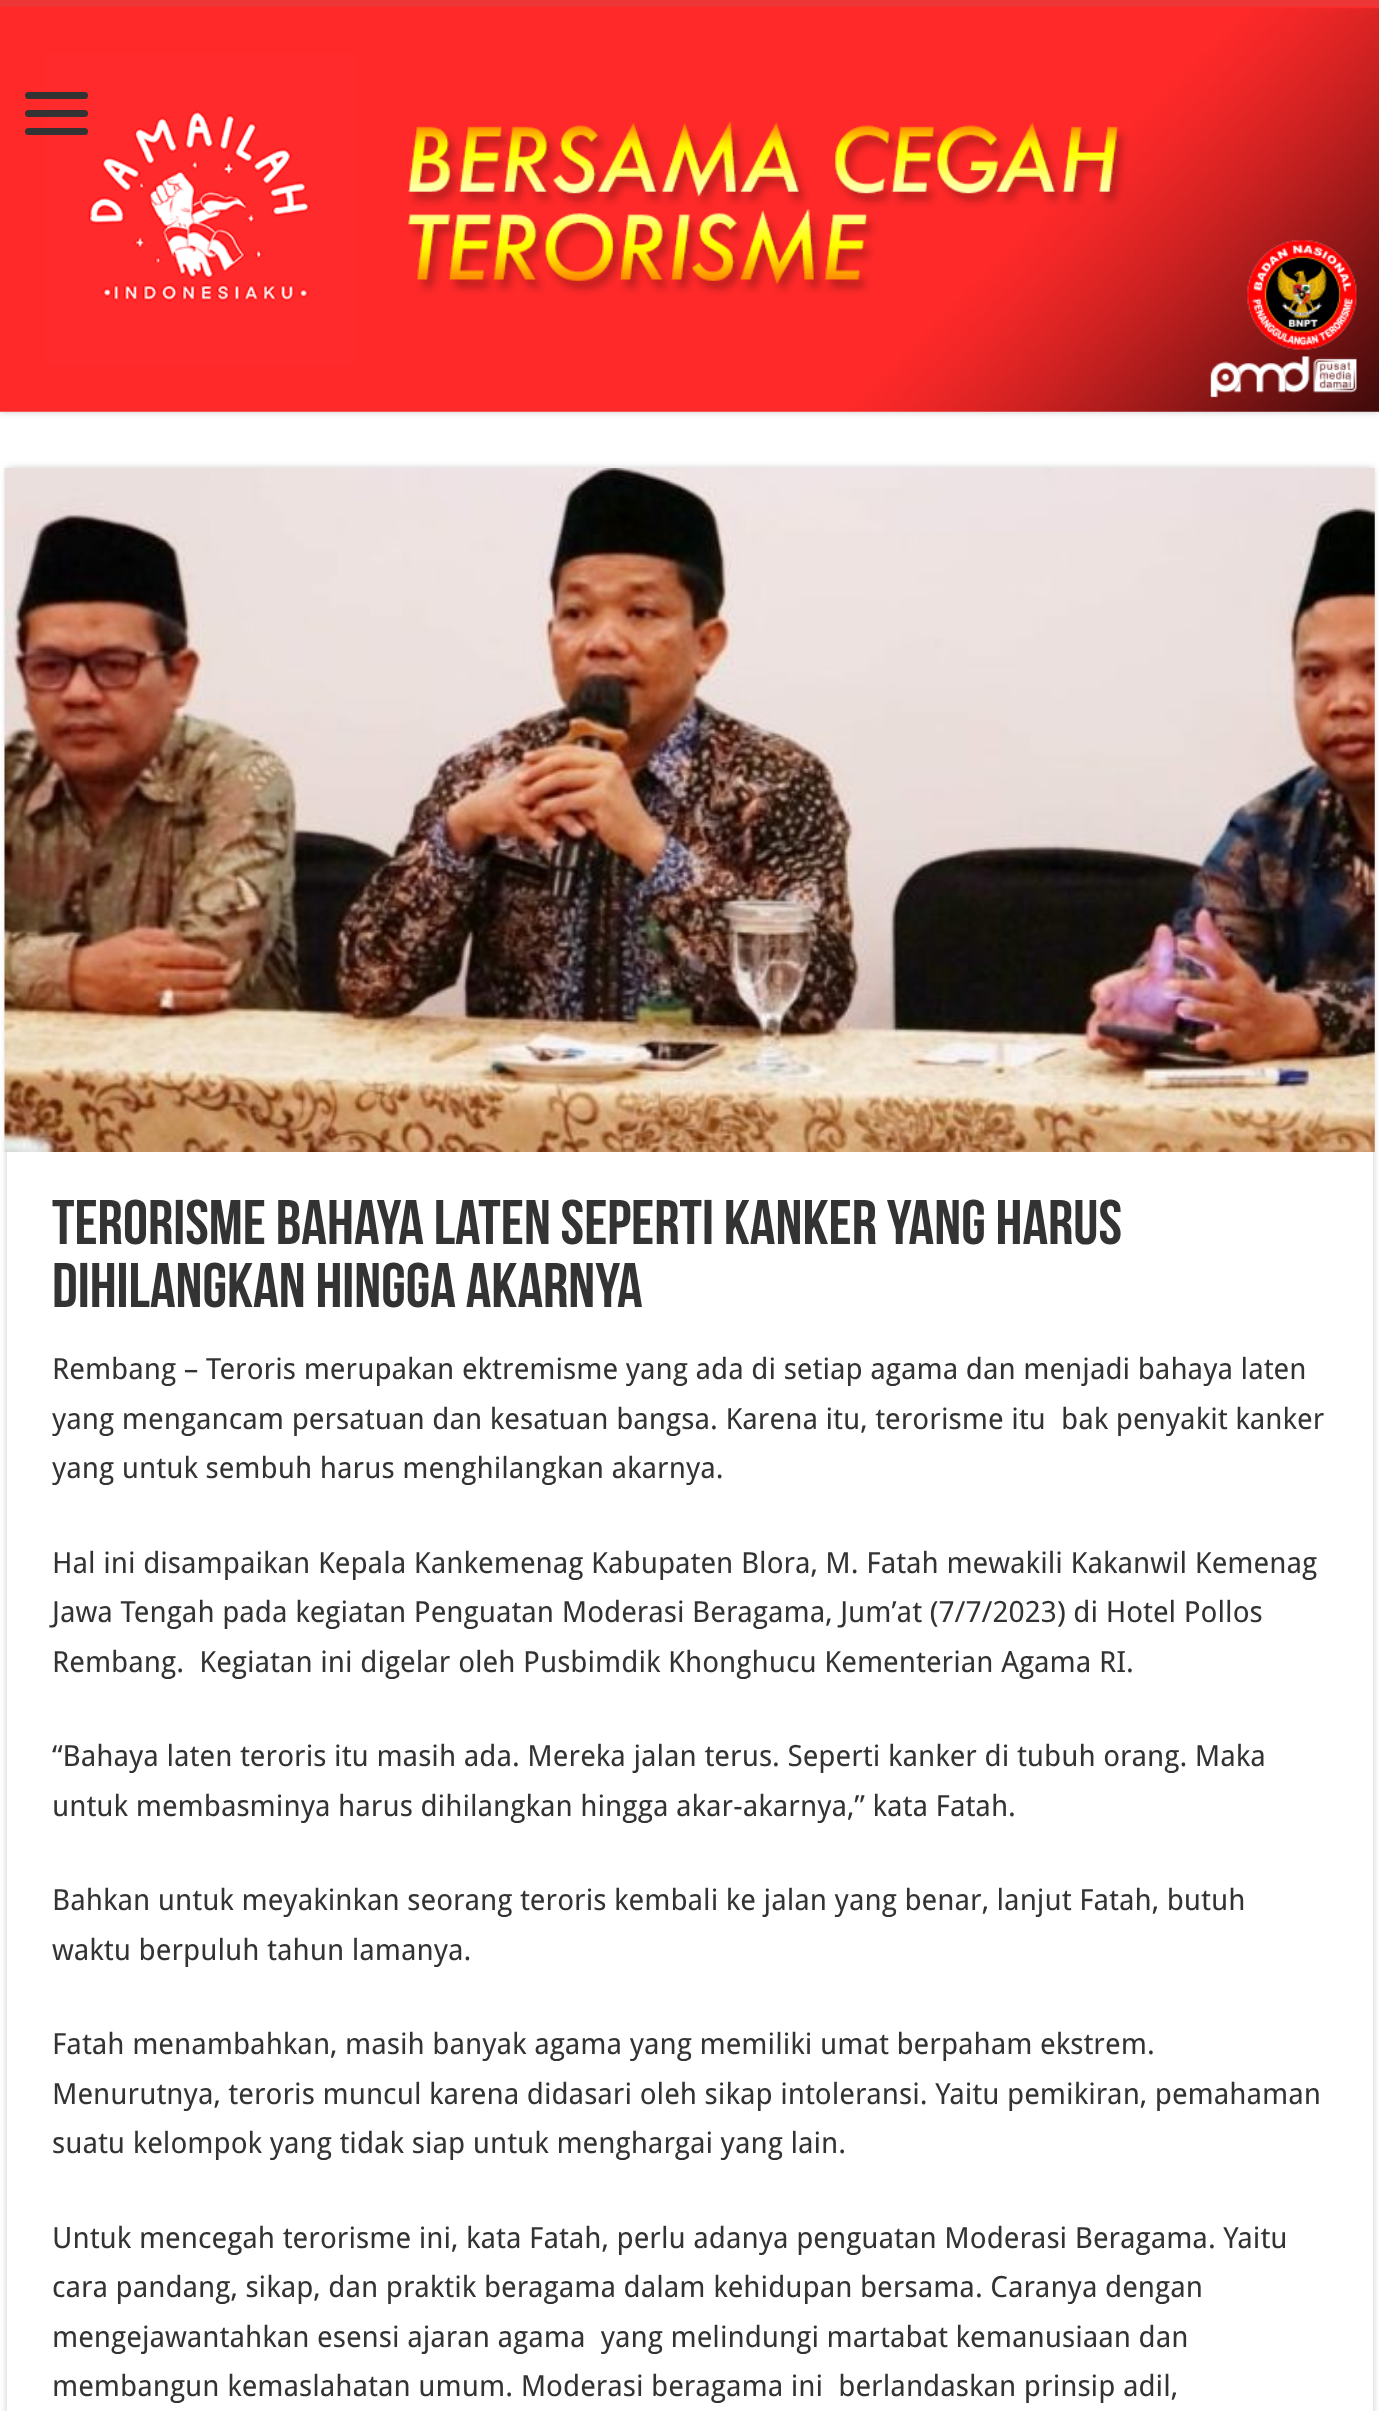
<!DOCTYPE html>
<meta charset="utf-8">
<style>body { margin: 0 } canvas { display: block }</style>
<canvas id="canvas" width="1379" height="2411"></canvas>
<img id="img1" src="img_01.png" hidden>
<img id="img2" src="img_02.png" hidden>
<script>
window.onload = function () {
	const canvas = document.getElementById("canvas");
	const ctx = canvas.getContext("2d");
	ctx.miterLimit = 4;
	ctx.fontKerning = "normal";
	function txt(s, x, y) {
		ctx.fillText(s, x, y);
	}
	function fill(x, y, w, h) {
		ctx.fillRect(x, y, w, h);
	}
	function round(x, y, w, h, r) {
		ctx.beginPath();
		ctx.roundRect(x, y, w, h, r);
		ctx.fill();
	}
	function img(id, x, y, w, h) {
		ctx.drawImage(document.getElementById(id), x, y, w, h);
	}

	ctx.fillStyle = "#FFFFFF";
	fill(0, 0, 1379, 2411);
	ctx.fillStyle = "#CACACA";
	ctx.filter = "blur(3.5px)";
	ctx.beginPath();
	ctx.rect(0, 0, 1379, 412);
	ctx.fill();
	ctx.filter = "none";
	ctx.fillStyle = "#EF3636";
	fill(0, 0, 1379, 7);
	img("img1", 0, 6, 1379, 406);
	ctx.fillStyle = "#333333";
	round(25, 92, 63, 7, 3.5);
	round(25, 110, 63, 7, 3.5);
	round(25, 128, 63, 7, 3.5);
	ctx.fillStyle = "#CACACA";
	ctx.filter = "blur(3.5px)";
	ctx.beginPath();
	ctx.rect(7, 468, 1366, 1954);
	ctx.fill();
	ctx.filter = "none";
	ctx.fillStyle = "#FFFFFF";
	fill(7, 1152, 1366, 1259);
	img("img2", 4, 468, 1371, 684);
	ctx.font = "bold 63px Bebas Neue";
	ctx.fillStyle = "#333333";
	txt("Terorisme Bahaya Laten Seperti Kanker yang Harus", 52, 1244);
	txt("Dihilangkan Hingga Akarnya", 52, 1307);
	ctx.font = "29.25px Droid Sans";
	txt("Rembang – Teroris merupakan ektremisme yang ada di setiap agama dan menjadi bahaya laten", 52, 1379);
	txt("yang mengancam persatuan dan kesatuan bangsa. Karena itu, terorisme itu  bak penyakit kanker", 52, 1429);
	txt("yang untuk sembuh harus menghilangkan akarnya.", 52, 1478);
	txt("Hal ini disampaikan Kepala Kankemenag Kabupaten Blora, M. Fatah mewakili Kakanwil Kemenag", 52, 1573);
	txt("Jawa Tengah pada kegiatan Penguatan Moderasi Beragama, Jum’at (7/7/2023) di Hotel Pollos", 52, 1622);
	txt("Rembang.  Kegiatan ini digelar oleh Pusbimdik Khonghucu Kementerian Agama RI.", 52, 1672);
	txt("“Bahaya laten teroris itu masih ada. Mereka jalan terus. Seperti kanker di tubuh orang. Maka", 52, 1766);
	txt("untuk membasminya harus dihilangkan hingga akar-akarnya,” kata Fatah.", 52, 1816);
	txt("Bahkan untuk meyakinkan seorang teroris kembali ke jalan yang benar, lanjut Fatah, butuh", 52, 1910);
	txt("waktu berpuluh tahun lamanya.", 52, 1960);
	txt("Fatah menambahkan, masih banyak agama yang memiliki umat berpaham ekstrem.", 52, 2054);
	txt("Menurutnya, teroris muncul karena didasari oleh sikap intoleransi. Yaitu pemikiran, pemahaman", 52, 2104);
	txt("suatu kelompok yang tidak siap untuk menghargai yang lain.", 52, 2153);
	txt("Untuk mencegah terorisme ini, kata Fatah, perlu adanya penguatan Moderasi Beragama. Yaitu", 52, 2248);
	txt("cara pandang, sikap, dan praktik beragama dalam kehidupan bersama. Caranya dengan", 52, 2297);
	txt("mengejawantahkan esensi ajaran agama  yang melindungi martabat kemanusiaan dan", 52, 2347);
	txt("membangun kemaslahatan umum. Moderasi beragama ini  berlandaskan prinsip adil,", 52, 2396);
};
</script>
